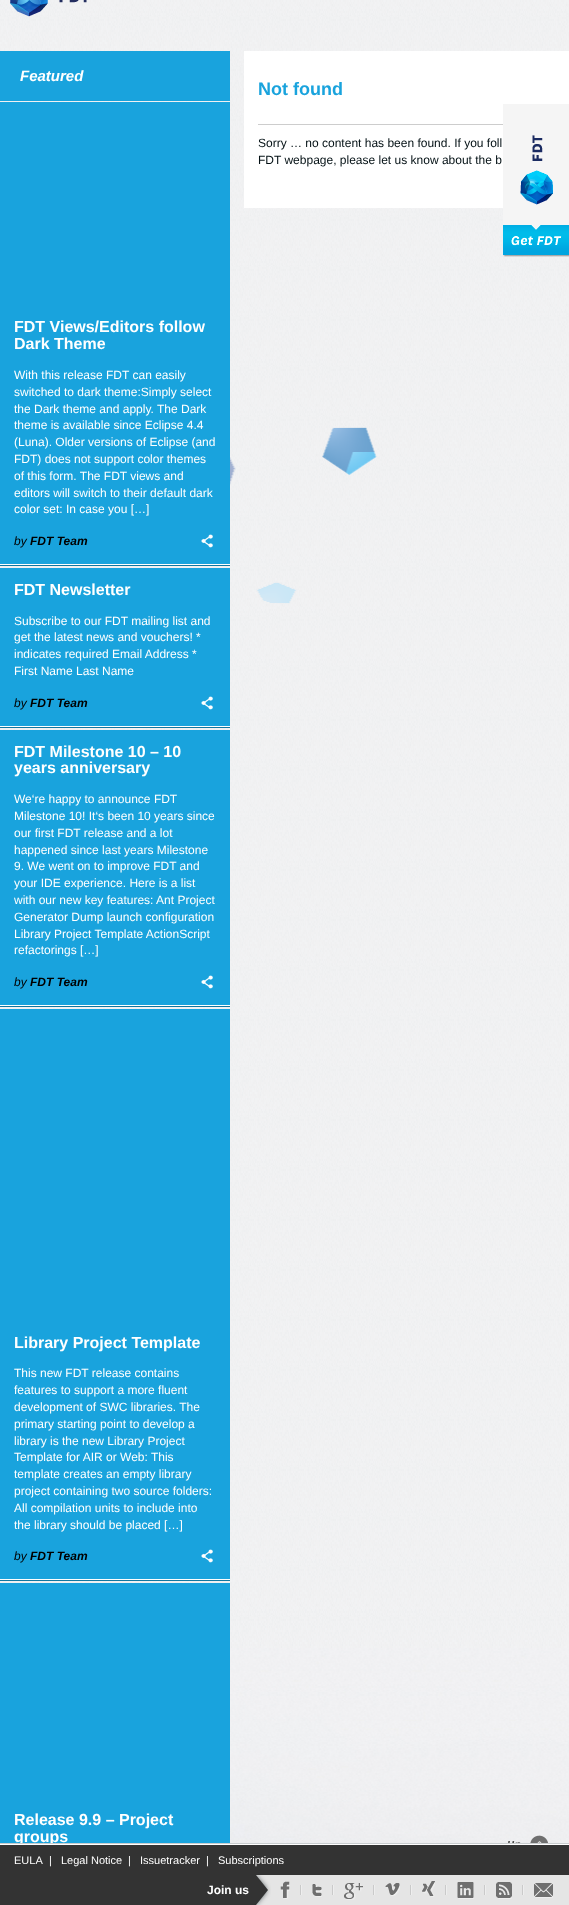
<!DOCTYPE html>
<meta charset="utf-8">
<style>body { margin: 0 } canvas { display: block }</style>
<canvas id="canvas" width="569" height="1905"></canvas>
<img id="img1" src="img_01.png" hidden>
<img id="img2" src="img_02.png" hidden>
<img id="img3" src="img_03.png" hidden>
<img id="img4" src="img_04.png" hidden>
<img id="img5" src="img_05.png" hidden>
<img id="img6" src="img_06.png" hidden>
<img id="img7" src="img_07.png" hidden>
<img id="img8" src="img_08.png" hidden>
<img id="img9" src="img_09.png" hidden>
<img id="img10" src="img_10.png" hidden>
<img id="img11" src="img_11.png" hidden>
<img id="img12" src="img_12.png" hidden>
<img id="img13" src="img_13.png" hidden>
<img id="img14" src="img_14.png" hidden>
<img id="img15" src="img_15.png" hidden>
<img id="img16" src="img_16.png" hidden>
<script>
window.onload = function () {
	const canvas = document.getElementById("canvas");
	const ctx = canvas.getContext("2d");
	ctx.miterLimit = 4;
	ctx.fontKerning = "normal";
	function txt(s, x, y) {
		ctx.fillText(s, x, y);
	}
	function fill(x, y, w, h) {
		ctx.fillRect(x, y, w, h);
	}
	function img(id, x, y, w, h) {
		ctx.drawImage(document.getElementById(id), x, y, w, h);
	}

	ctx.fillStyle = "#FFFFFF";
	fill(0, 0, 569, 1905);
	img("img1", 0, 0, 569, 1843);
	img("img2", 230, 427, 147, 177);
	img("img3", 10, 0, 77, 17);
	ctx.fillStyle = "#19A3DD";
	fill(0, 51, 230, 50);
	fill(0, 102, 230, 462);
	ctx.fillStyle = "#1277A0";
	fill(0, 565, 230, 1);
	img("img4", 201, 534, 12, 14);
	ctx.fillStyle = "#FFFFFF";
	fill(0, 564, 230, 1);
	ctx.fillStyle = "#19A3DD";
	fill(0, 568, 230, 158);
	ctx.fillStyle = "#1277A0";
	fill(0, 727, 230, 1);
	img("img4", 201, 696, 12, 14);
	ctx.fillStyle = "#FFFFFF";
	fill(0, 726, 230, 1);
	ctx.fillStyle = "#19A3DD";
	fill(0, 730, 230, 275);
	ctx.fillStyle = "#1277A0";
	fill(0, 1006, 230, 1);
	img("img4", 201, 975, 12, 14);
	ctx.fillStyle = "#FFFFFF";
	fill(0, 1005, 230, 1);
	ctx.fillStyle = "#19A3DD";
	fill(0, 1009, 230, 570);
	ctx.fillStyle = "#1277A0";
	fill(0, 1580, 230, 1);
	img("img4", 201, 1549, 12, 14);
	ctx.fillStyle = "#FFFFFF";
	fill(0, 1579, 230, 1);
	ctx.fillStyle = "#19A3DD";
	fill(0, 1583, 230, 260);
	ctx.fillStyle = "#FFFFFF";
	fill(244, 51, 325, 157);
	ctx.fillStyle = "#CDCDCD";
	fill(258, 124, 245, 1);
	img("img5", 503, 104, 66, 153);
	img("img6", 508, 1835, 40, 8);
	ctx.font = "italic bold 15px Liberation Sans";
	ctx.fillStyle = "#FFFFFF";
	txt("Featured", 20, 81);
	ctx.font = "bold 16px Liberation Sans";
	txt("FDT Views/Editors follow", 14, 332);
	txt("Dark Theme", 14, 349);
	ctx.font = "12px Liberation Sans";
	txt("With this release FDT can easily", 14, 379);
	txt("switched to dark theme:Simply select", 14, 396);
	txt("the Dark theme and apply. The Dark", 14, 413);
	txt("theme is available since Eclipse 4.4", 14, 429);
	txt("(Luna). Older versions of Eclipse (and", 14, 446);
	txt("FDT) does not support color themes", 14, 463);
	txt("of this form. The FDT views and", 14, 480);
	txt("editors will switch to their default dark", 14, 497);
	txt("color set: In case you […]", 14, 513);
	ctx.font = "italic 12px Liberation Sans";
	ctx.fillStyle = "#000000";
	txt("by", 14, 545);
	ctx.font = "italic bold 12px Liberation Sans";
	txt("FDT Team", 30, 545);
	ctx.font = "bold 16px Liberation Sans";
	ctx.fillStyle = "#FFFFFF";
	txt("FDT Newsletter", 14, 595);
	ctx.font = "12px Liberation Sans";
	txt("Subscribe to our FDT mailing list and", 14, 625);
	txt("get the latest news and vouchers! *", 14, 641);
	txt("indicates required Email Address *", 14, 658);
	txt("First Name Last Name", 14, 675);
	ctx.font = "italic 12px Liberation Sans";
	ctx.fillStyle = "#000000";
	txt("by", 14, 707);
	ctx.font = "italic bold 12px Liberation Sans";
	txt("FDT Team", 30, 707);
	ctx.font = "bold 16px Liberation Sans";
	ctx.fillStyle = "#FFFFFF";
	txt("FDT Milestone 10 – 10", 14, 757);
	txt("years anniversary", 14, 773);
	ctx.font = "12px Liberation Sans";
	txt("We‘re happy to announce FDT", 14, 803);
	txt("Milestone 10! It‘s been 10 years since", 14, 820);
	txt("our first FDT release and a lot", 14, 837);
	txt("happened since last years Milestone", 14, 854);
	txt("9. We went on to improve FDT and", 14, 870);
	txt("your IDE experience. Here is a list", 14, 887);
	txt("with our new key features: Ant Project", 14, 904);
	txt("Generator Dump launch configuration", 14, 921);
	txt("Library Project Template ActionScript", 14, 938);
	txt("refactorings […]", 14, 954);
	ctx.font = "italic 12px Liberation Sans";
	ctx.fillStyle = "#000000";
	txt("by", 14, 986);
	ctx.font = "italic bold 12px Liberation Sans";
	txt("FDT Team", 30, 986);
	ctx.font = "bold 16px Liberation Sans";
	ctx.fillStyle = "#FFFFFF";
	txt("Library Project Template", 14, 1348);
	ctx.font = "12px Liberation Sans";
	txt("This new FDT release contains", 14, 1377);
	txt("features to support a more fluent", 14, 1394);
	txt("development of SWC libraries. The", 14, 1411);
	txt("primary starting point to develop a", 14, 1428);
	txt("library is the new Library Project", 14, 1445);
	txt("Template for AIR or Web: This", 14, 1461);
	txt("template creates an empty library", 14, 1478);
	txt("project containing two source folders:", 14, 1495);
	txt("All compilation units to include into", 14, 1512);
	txt("the library should be placed […]", 14, 1529);
	ctx.font = "italic 12px Liberation Sans";
	ctx.fillStyle = "#000000";
	txt("by", 14, 1560);
	ctx.font = "italic bold 12px Liberation Sans";
	txt("FDT Team", 30, 1560);
	ctx.font = "bold 16px Liberation Sans";
	ctx.fillStyle = "#FFFFFF";
	txt("Release 9.9 – Project", 14, 1825);
	txt("groups", 14, 1842);
	ctx.font = "bold 18px Liberation Sans";
	ctx.fillStyle = "#19A3DD";
	txt("Not found", 258, 95);
	ctx.font = "12px Liberation Sans";
	ctx.fillStyle = "#031014";
	txt("Sorry … no content has been found. If you foll", 258, 147);
	txt("FDT webpage, please let us know about the b", 258, 164);
	ctx.fillStyle = "#C9CDCF";
	fill(0, 1843, 569, 1);
	ctx.fillStyle = "#333333";
	fill(0, 1845, 569, 60);
	ctx.font = "11px Liberation Sans";
	ctx.fillStyle = "#FFFFFF";
	txt("EULA", 14, 1864);
	txt("|", 49, 1864);
	txt("Legal Notice", 61, 1864);
	txt("|", 128, 1864);
	txt("Issuetracker", 140, 1864);
	txt("|", 206, 1864);
	txt("Subscriptions", 218, 1864);
	ctx.font = "bold 12px Liberation Sans";
	txt("Join us", 207, 1894);
	ctx.fillStyle = "#E5E5E5";
	fill(271, 1875, 298, 30);
	img("img7", 255, 1875, 16, 30);
	img("img8", 280, 1881, 10, 18);
	img("img9", 300, 1885, 2, 10);
	img("img10", 312, 1884, 10, 13);
	img("img9", 332, 1885, 2, 10);
	img("img11", 344, 1883, 19, 17);
	img("img9", 373, 1885, 2, 10);
	img("img12", 385, 1883, 15, 13);
	img("img9", 410, 1885, 2, 10);
	img("img13", 422, 1881, 13, 16);
	img("img9", 445, 1885, 2, 10);
	img("img14", 457, 1882, 17, 17);
	img("img9", 484, 1885, 2, 10);
	img("img15", 496, 1882, 16, 17);
	img("img9", 522, 1885, 2, 10);
	img("img16", 534, 1883, 19, 15);
};
</script>
